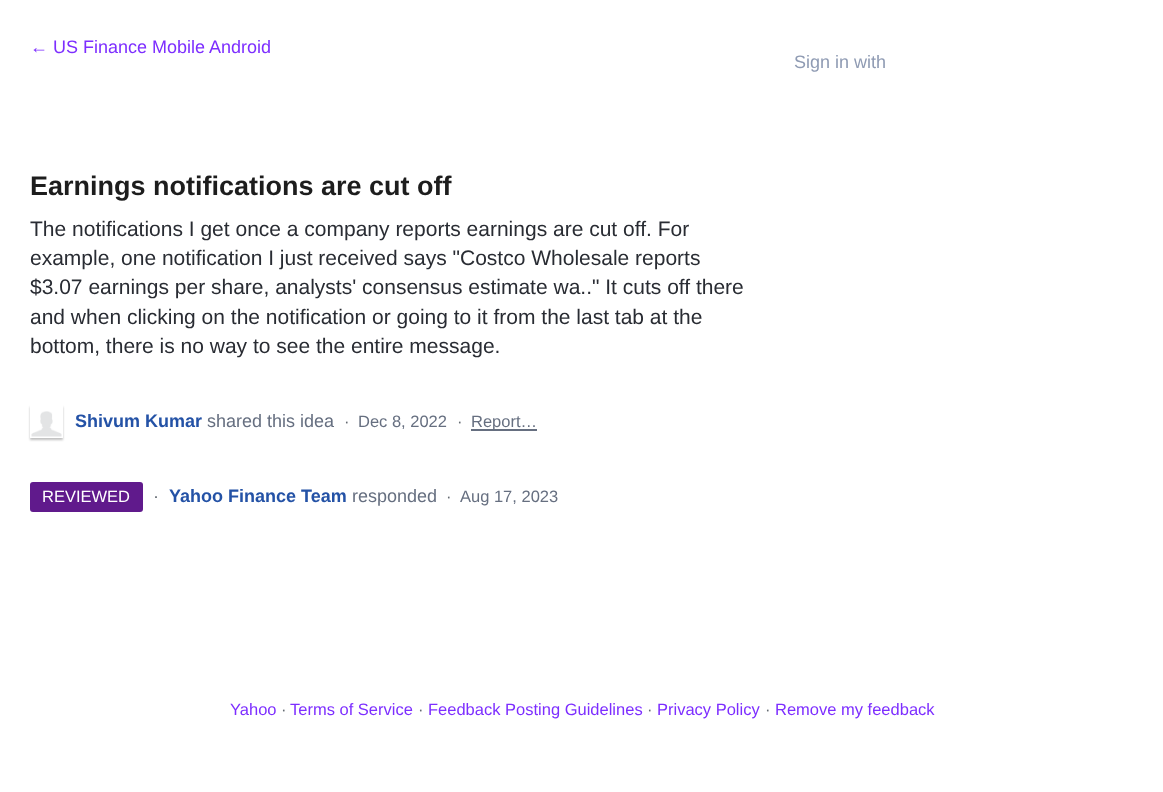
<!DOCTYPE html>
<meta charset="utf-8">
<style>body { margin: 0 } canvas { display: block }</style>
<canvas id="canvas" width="1163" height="792"></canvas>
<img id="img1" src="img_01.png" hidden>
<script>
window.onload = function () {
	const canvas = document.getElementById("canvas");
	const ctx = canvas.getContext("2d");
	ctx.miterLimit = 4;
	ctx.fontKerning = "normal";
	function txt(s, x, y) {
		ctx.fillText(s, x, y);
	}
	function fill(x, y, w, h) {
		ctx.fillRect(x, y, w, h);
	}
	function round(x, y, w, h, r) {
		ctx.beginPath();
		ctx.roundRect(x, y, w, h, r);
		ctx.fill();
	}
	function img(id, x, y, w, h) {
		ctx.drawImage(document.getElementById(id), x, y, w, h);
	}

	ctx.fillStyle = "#FFFFFF";
	fill(0, 0, 1163, 792);
	ctx.save();
	ctx.beginPath();
	ctx.moveTo(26, 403);
	ctx.lineTo(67, 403);
	ctx.lineTo(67, 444);
	ctx.lineTo(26, 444);
	ctx.closePath();
	ctx.moveTo(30, 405);
	ctx.lineTo(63, 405);
	ctx.lineTo(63, 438);
	ctx.lineTo(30, 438);
	ctx.closePath();
	ctx.clip("evenodd");
	ctx.fillStyle = "rgba(0, 0, 0, 0.25)";
	ctx.filter = "blur(1px)";
	ctx.beginPath();
	ctx.rect(30, 407, 33, 33);
	ctx.fill();
	ctx.filter = "none";
	ctx.restore();
	img("img1", 31, 411, 31, 26);
	ctx.fillStyle = "#666F80";
	fill(471, 429, 66, 2);
	ctx.fillStyle = "#601A8C";
	round(30, 482, 113, 30, 3);
	ctx.font = "18px Liberation Sans";
	ctx.fillStyle = "#7D2EFF";
	txt("← US Finance Mobile Android", 30, 53);
	ctx.font = "bold 27px Liberation Sans";
	ctx.fillStyle = "#1D1D1D";
	txt("Earnings notifications are cut off", 30, 195);
	ctx.font = "21px Liberation Sans";
	ctx.fillStyle = "#292C33";
	txt("The notifications I get once a company reports earnings are cut off. For", 30, 236);
	txt("example, one notification I just received says \"Costco Wholesale reports", 30, 265);
	txt("$3.07 earnings per share, analysts' consensus estimate wa..\" It cuts off there", 30, 294);
	txt("and when clicking on the notification or going to it from the last tab at the", 30, 324);
	txt("bottom, there is no way to see the entire message.", 30, 353);
	ctx.font = "bold 18px Liberation Sans";
	ctx.fillStyle = "#2452A6";
	txt("Shivum Kumar", 75, 427);
	ctx.font = "18px Liberation Sans";
	ctx.fillStyle = "#666F80";
	txt("shared this idea", 207, 427);
	ctx.font = "16.5px Liberation Sans";
	ctx.fillStyle = "#646B72";
	txt("·", 344, 427);
	ctx.fillStyle = "#666F80";
	txt("Dec 8, 2022", 358, 427);
	ctx.fillStyle = "#646B72";
	txt("·", 457, 427);
	ctx.fillStyle = "#666F80";
	txt("Report…", 471, 427);
	ctx.fillStyle = "#FFFFFF";
	txt("REVIEWED", 42, 502);
	ctx.font = "18px Liberation Sans";
	ctx.fillStyle = "#646B72";
	txt("·", 153, 502);
	ctx.font = "bold 18px Liberation Sans";
	ctx.fillStyle = "#2452A6";
	txt("Yahoo Finance Team", 169, 502);
	ctx.font = "18px Liberation Sans";
	ctx.fillStyle = "#666F80";
	txt("responded", 352, 502);
	ctx.font = "16.5px Liberation Sans";
	ctx.fillStyle = "#646B72";
	txt("·", 446, 502);
	ctx.fillStyle = "#666F80";
	txt("Aug 17, 2023", 460, 502);
	ctx.font = "18px Liberation Sans";
	ctx.fillStyle = "#8F9BB3";
	txt("Sign in with", 794, 68);
	ctx.font = "16.5px Liberation Sans";
	ctx.fillStyle = "#7D2EFF";
	txt("Yahoo", 230, 715);
	ctx.fillStyle = "#646B72";
	txt("·", 281, 715);
	ctx.fillStyle = "#7D2EFF";
	txt("Terms of Service", 290, 715);
	ctx.fillStyle = "#646B72";
	txt("·", 418, 715);
	ctx.fillStyle = "#7D2EFF";
	txt("Feedback Posting Guidelines", 428, 715);
	ctx.fillStyle = "#646B72";
	txt("·", 647, 715);
	ctx.fillStyle = "#7D2EFF";
	txt("Privacy Policy", 657, 715);
	ctx.fillStyle = "#646B72";
	txt("·", 765, 715);
	ctx.fillStyle = "#7D2EFF";
	txt("Remove my feedback", 775, 715);
};
</script>
